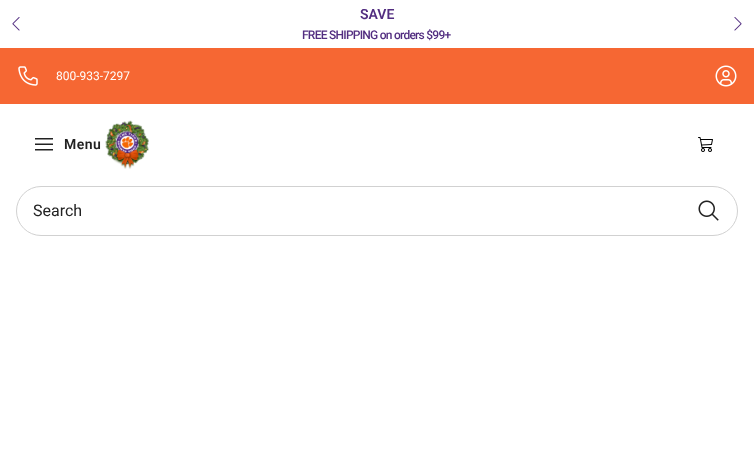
<!DOCTYPE html>
<meta charset="utf-8">
<style>body { margin: 0 } canvas { display: block }</style>
<canvas id="canvas" width="754" height="464"></canvas>
<img id="img1" src="img_01.png" hidden>
<img id="img2" src="img_02.png" hidden>
<img id="img3" src="img_03.png" hidden>
<img id="img4" src="img_04.png" hidden>
<img id="img5" src="img_05.png" hidden>
<img id="img6" src="img_06.png" hidden>
<img id="img7" src="img_07.png" hidden>
<img id="img8" src="img_08.png" hidden>
<script>
window.onload = function () {
	const canvas = document.getElementById("canvas");
	const ctx = canvas.getContext("2d");
	ctx.miterLimit = 4;
	ctx.fontKerning = "normal";
	function txt(s, x, y) {
		ctx.fillText(s, x, y);
	}
	function fill(x, y, w, h) {
		ctx.fillRect(x, y, w, h);
	}
	function img(id, x, y, w, h) {
		ctx.drawImage(document.getElementById(id), x, y, w, h);
	}

	ctx.fillStyle = "#FFFFFF";
	fill(0, 0, 754, 464);
	img("img1", 12, 17, 8, 14);
	img("img2", 734, 17, 8, 14);
	ctx.fillStyle = "#F66733";
	fill(0, 48, 754, 56);
	img("img3", 18, 66, 20, 20);
	img("img4", 715, 65, 22, 22);
	img("img5", 35, 138, 18, 13);
	img("img6", 105, 120, 44, 49);
	img("img7", 698, 137, 15, 15);
	ctx.beginPath();
	ctx.roundRect(16.5, 186.5, 721, 49, 24.5);
	ctx.strokeStyle = "#D1D1D1";
	ctx.stroke();
	img("img8", 698, 200, 21, 21);
	ctx.font = "600 14px Roboto";
	ctx.fillStyle = "#522D80";
	txt("SAVE", 360, 19);
	ctx.letterSpacing = "-0.75px";
	ctx.font = "500 12px Roboto";
	txt("FREE SHIPPING on orders $99+", 302, 39);
	ctx.letterSpacing = "0px";
	ctx.font = "12px Roboto";
	ctx.fillStyle = "#FFFFFF";
	txt("800-933-7297", 56, 80);
	ctx.letterSpacing = "0.5px";
	ctx.font = "600 14px Roboto";
	ctx.fillStyle = "#222222";
	txt("Menu", 64, 149);
	ctx.letterSpacing = "0px";
	ctx.font = "16px Roboto";
	txt("Search", 33, 216);
};
</script>
